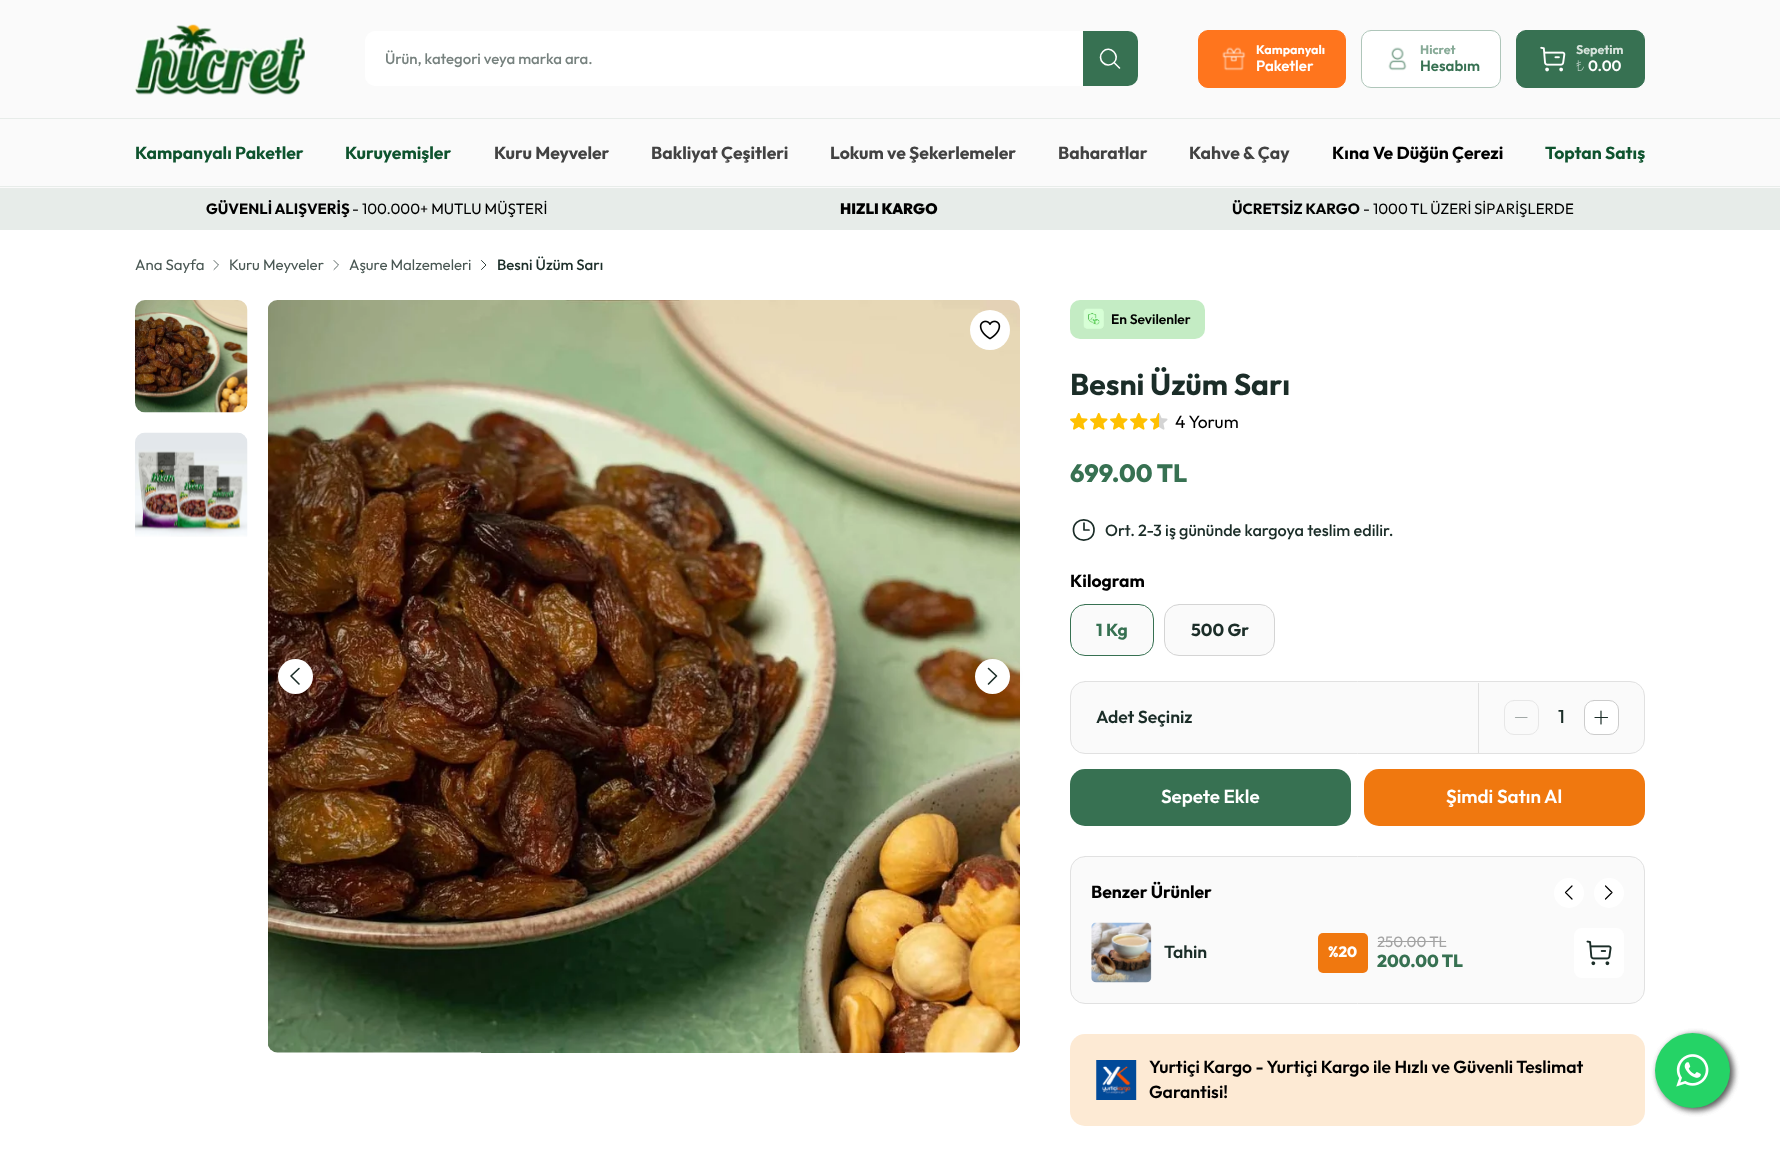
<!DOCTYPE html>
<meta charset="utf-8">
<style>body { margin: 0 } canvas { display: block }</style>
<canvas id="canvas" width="1780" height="1157"></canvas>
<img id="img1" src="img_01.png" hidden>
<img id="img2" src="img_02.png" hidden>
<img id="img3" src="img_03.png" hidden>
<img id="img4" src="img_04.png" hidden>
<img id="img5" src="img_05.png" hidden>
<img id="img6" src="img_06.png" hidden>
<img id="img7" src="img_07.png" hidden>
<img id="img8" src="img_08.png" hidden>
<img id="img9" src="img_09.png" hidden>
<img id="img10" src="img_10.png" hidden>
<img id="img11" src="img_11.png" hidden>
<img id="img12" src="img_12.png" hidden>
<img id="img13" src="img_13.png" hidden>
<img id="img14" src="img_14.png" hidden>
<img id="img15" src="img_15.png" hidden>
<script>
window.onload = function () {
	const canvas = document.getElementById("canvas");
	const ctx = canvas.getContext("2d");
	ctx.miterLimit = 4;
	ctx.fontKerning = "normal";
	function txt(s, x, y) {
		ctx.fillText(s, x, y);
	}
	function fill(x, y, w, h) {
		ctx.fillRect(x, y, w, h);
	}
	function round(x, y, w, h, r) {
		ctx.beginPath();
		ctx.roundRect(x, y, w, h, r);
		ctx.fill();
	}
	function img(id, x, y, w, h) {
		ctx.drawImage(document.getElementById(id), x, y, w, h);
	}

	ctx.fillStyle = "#FFFFFF";
	fill(0, 0, 1780, 1157);
	ctx.fillStyle = "#FAFAFA";
	fill(0, 0, 1780, 188);
	img("img1", 135, 24, 170, 71);
	ctx.fillStyle = "#FFFFFF";
	round(365, 31, 773, 55, 10);
	ctx.fillStyle = "#377152";
	ctx.beginPath();
	ctx.roundRect(1083, 31, 55, 55, [0, 10, 10, 0]);
	ctx.fill();
	ctx.beginPath();
	ctx.moveTo(1119.5, 68);
	ctx.lineTo(1114, 62.5);
	ctx.moveTo(1114, 62.5);
	ctx.bezierCurveTo(1121, 55.5, 1110, 44.5, 1103, 51.5);
	ctx.bezierCurveTo(1095.5, 59, 1106.5, 70, 1114, 62.5);
	ctx.closePath();
	ctx.strokeStyle = "#FFFFFF";
	ctx.lineWidth = 1.6;
	ctx.lineCap = "round";
	ctx.lineJoin = "round";
	ctx.stroke();
	ctx.fillStyle = "#FF751D";
	ctx.beginPath();
	ctx.roundRect(1198.5, 30.5, 147, 57, 9.5);
	ctx.fill();
	ctx.strokeStyle = "#FF751D";
	ctx.lineWidth = 1;
	ctx.lineJoin = "miter";
	ctx.stroke();
	img("img2", 1222, 47, 24, 24);
	ctx.fillStyle = "#FFFFFF";
	ctx.beginPath();
	ctx.roundRect(1361.5, 30.5, 139, 57, 9.5);
	ctx.fill();
	ctx.strokeStyle = "#AFC6BA";
	ctx.stroke();
	img("img3", 1388, 47, 19, 24);
	ctx.fillStyle = "#377152";
	ctx.beginPath();
	ctx.roundRect(1516.5, 30.5, 128, 57, 9.5);
	ctx.fill();
	ctx.strokeStyle = "#377152";
	ctx.stroke();
	img("img4", 1540, 46, 26, 26);
	ctx.fillStyle = "#E7ECE9";
	fill(0, 118, 1780, 1);
	fill(0, 186, 1780, 1);
	fill(0, 188, 1780, 42);
	ctx.beginPath();
	ctx.moveTo(214, 260.5);
	ctx.lineTo(218.5, 265);
	ctx.lineTo(214, 269.5);
	ctx.strokeStyle = "#495753";
	ctx.lineWidth = 0.9;
	ctx.lineJoin = "round";
	ctx.stroke();
	ctx.beginPath();
	ctx.moveTo(334, 260.5);
	ctx.lineTo(338.5, 265);
	ctx.lineTo(334, 269.5);
	ctx.stroke();
	ctx.beginPath();
	ctx.moveTo(481.5, 260.5);
	ctx.lineTo(486, 265);
	ctx.lineTo(481.5, 269.5);
	ctx.strokeStyle = "#1B2D28";
	ctx.stroke();
	img("img5", 135, 300, 113, 113);
	img("img6", 135, 432, 113, 105);
	img("img7", 268, 300, 752, 753);
	ctx.fillStyle = "#FFFFFF";
	ctx.beginPath();
	ctx.arc(295.5, 676.5, 17.5, 0, Math.PI * 2);
	ctx.fill();
	ctx.beginPath();
	ctx.moveTo(299, 684);
	ctx.lineTo(291, 676);
	ctx.lineTo(299, 668.5);
	ctx.lineWidth = 1.6;
	ctx.stroke();
	ctx.fillStyle = "rgba(0, 0, 0, 0.08)";
	ctx.filter = "blur(7.5px)";
	ctx.beginPath();
	ctx.roundRect(975, 659, 35, 35, 17.5);
	ctx.fill();
	ctx.filter = "none";
	ctx.fillStyle = "#FFFFFF";
	ctx.beginPath();
	ctx.arc(992.5, 676.5, 17.5, 0, Math.PI * 2);
	ctx.fill();
	ctx.beginPath();
	ctx.moveTo(988.5, 668.5);
	ctx.lineTo(996.5, 676);
	ctx.lineTo(988.5, 684);
	ctx.stroke();
	ctx.beginPath();
	ctx.arc(990, 330, 20, 0, Math.PI * 2);
	ctx.fill();
	img("img8", 979, 320, 22, 20);
	ctx.fillStyle = "#C4ECC4";
	round(1070, 300, 135, 39, 10);
	img("img9", 1083, 308, 21, 21);
	img("img10", 1070, 413, 18, 17);
	img("img10", 1090, 413, 18, 17);
	img("img10", 1110, 413, 18, 17);
	img("img10", 1130, 413, 18, 17);
	img("img11", 1150, 413, 18, 17);
	ctx.beginPath();
	ctx.moveTo(1084, 523);
	ctx.lineTo(1084, 530);
	ctx.lineTo(1089, 530);
	ctx.moveTo(1094, 530);
	ctx.bezierCurveTo(1094, 543.5, 1073.5, 543.5, 1073.5, 530);
	ctx.bezierCurveTo(1073.5, 516.5, 1094, 516.5, 1094, 530);
	ctx.closePath();
	ctx.lineWidth = 1.7;
	ctx.stroke();
	ctx.fillStyle = "#FAFAFA";
	ctx.beginPath();
	ctx.roundRect(1070.5, 604.5, 83, 51, 14.5);
	ctx.fill();
	ctx.strokeStyle = "#377152";
	ctx.lineWidth = 1;
	ctx.lineJoin = "miter";
	ctx.stroke();
	ctx.beginPath();
	ctx.roundRect(1164.5, 604.5, 110, 51, 14.5);
	ctx.fill();
	ctx.strokeStyle = "#D4D4D4";
	ctx.stroke();
	ctx.beginPath();
	ctx.roundRect(1070.5, 681.5, 574, 72, 14.5);
	ctx.fill();
	ctx.strokeStyle = "#E1E1E1";
	ctx.stroke();
	ctx.fillStyle = "#E1E1E1";
	fill(1478, 683, 1, 70);
	ctx.beginPath();
	ctx.roundRect(1504.5, 700.5, 34, 34, 9.5);
	ctx.strokeStyle = "#E7E7E7";
	ctx.stroke();
	ctx.beginPath();
	ctx.moveTo(1515.5, 717.5);
	ctx.lineTo(1527, 717.5);
	ctx.strokeStyle = "#A1A8A6";
	ctx.lineWidth = 1.2;
	ctx.lineJoin = "round";
	ctx.stroke();
	ctx.fillStyle = "#FFFFFF";
	ctx.beginPath();
	ctx.roundRect(1584.5, 700.5, 34, 34, 9.5);
	ctx.fill();
	ctx.strokeStyle = "#CCCCCC";
	ctx.lineWidth = 1;
	ctx.lineJoin = "miter";
	ctx.stroke();
	ctx.beginPath();
	ctx.moveTo(1601, 711);
	ctx.lineTo(1601, 724);
	ctx.moveTo(1607.5, 717.5);
	ctx.lineTo(1595, 717.5);
	ctx.strokeStyle = "#1B2D28";
	ctx.lineWidth = 1.2;
	ctx.lineJoin = "round";
	ctx.stroke();
	ctx.fillStyle = "#377152";
	round(1070, 769, 281, 57, 15);
	ctx.fillStyle = "#F0780F";
	round(1364, 769, 281, 57, 15);
	ctx.fillStyle = "#FAFAFA";
	ctx.beginPath();
	ctx.roundRect(1070.5, 856.5, 574, 147, 14.5);
	ctx.fill();
	ctx.strokeStyle = "#E1E1E1";
	ctx.lineWidth = 1;
	ctx.lineJoin = "miter";
	ctx.stroke();
	ctx.fillStyle = "#FFFFFF";
	ctx.beginPath();
	ctx.arc(1569, 893, 15, 0, Math.PI * 2);
	ctx.fill();
	ctx.beginPath();
	ctx.arc(1609, 893, 15, 0, Math.PI * 2);
	ctx.fill();
	ctx.beginPath();
	ctx.moveTo(1572, 899);
	ctx.lineTo(1565.5, 892.5);
	ctx.lineTo(1572, 886);
	ctx.moveTo(1605.5, 886);
	ctx.lineTo(1612, 892.5);
	ctx.lineTo(1605.5, 899);
	ctx.strokeStyle = "#000000";
	ctx.lineWidth = 1.2;
	ctx.lineJoin = "round";
	ctx.stroke();
	img("img12", 1091, 922, 61, 61);
	ctx.fillStyle = "#F0780F";
	round(1318, 933, 50, 40, 5);
	ctx.fillStyle = "#A3A3A3";
	fill(1378, 941, 68, 1);
	ctx.fillStyle = "#FFFFFF";
	round(1574, 928, 50, 50, 8);
	img("img13", 1586, 940, 26, 26);
	ctx.fillStyle = "#FDEAD4";
	round(1070, 1034, 575, 92, 15);
	img("img14", 1096, 1060, 41, 40);
	ctx.fillStyle = "rgba(0, 0, 0, 0.3)";
	ctx.filter = "blur(3px)";
	ctx.beginPath();
	ctx.roundRect(1658, 1035, 75, 75, 37.5);
	ctx.fill();
	ctx.filter = "none";
	ctx.filter = "blur(3px)";
	ctx.beginPath();
	ctx.roundRect(1658, 1035, 75, 75, 37.5);
	ctx.fill();
	ctx.filter = "none";
	ctx.filter = "blur(3px)";
	ctx.beginPath();
	ctx.roundRect(1658, 1035, 75, 75, 37.5);
	ctx.fill();
	ctx.filter = "none";
	ctx.fillStyle = "#25D366";
	ctx.beginPath();
	ctx.arc(1692.5, 1070.5, 37.5, 0, Math.PI * 2);
	ctx.fill();
	img("img15", 1676, 1054, 33, 33);
	ctx.font = "500 15px Outfit";
	ctx.fillStyle = "#76817E";
	txt("Ürün, kategori veya marka ara.", 385, 64);
	ctx.font = "bold 12.5px Outfit";
	ctx.fillStyle = "#FFFFFF";
	txt("Kampanyalı", 1256, 54);
	ctx.font = "600 15px Outfit";
	txt("Paketler", 1256, 71);
	ctx.font = "bold 12.5px Outfit";
	ctx.fillStyle = "#87AA97";
	txt("Hicret", 1420, 54);
	ctx.font = "600 15px Outfit";
	ctx.fillStyle = "#377152";
	txt("Hesabım", 1420, 71);
	ctx.font = "bold 12.5px Outfit";
	ctx.fillStyle = "#D7E3DC";
	txt("Sepetim", 1576, 54);
	ctx.font = "100 15px Noto Sans";
	ctx.fillStyle = "#FFFFFF";
	txt("₺", 1576, 71);
	ctx.font = "600 15px Outfit";
	txt("0.00", 1588, 71);
	ctx.font = "bold 17.5px Outfit";
	ctx.fillStyle = "#0E532E";
	txt("Kampanyalı Paketler", 135, 159);
	txt("Kuruyemişler", 345, 159);
	ctx.fillStyle = "#424242";
	txt("Kuru Meyveler", 494, 159);
	txt("Bakliyat Çeşitleri", 651, 159);
	txt("Lokum ve Şekerlemeler", 830, 159);
	txt("Baharatlar", 1058, 159);
	txt("Kahve & Çay", 1189, 159);
	ctx.fillStyle = "#000000";
	txt("Kına Ve Düğün Çerezi", 1332, 159);
	ctx.fillStyle = "#0E532E";
	txt("Toptan Satış", 1545, 159);
	ctx.font = "bold 15px Outfit";
	ctx.fillStyle = "#000000";
	txt("GÜVENLİ ALIŞVERİŞ", 206, 214);
	ctx.font = "15px Outfit";
	txt("- 100.000+ MUTLU MÜŞTERİ", 352, 214);
	ctx.font = "900 15px Outfit";
	txt("HIZLI KARGO", 840, 214);
	ctx.font = "bold 15px Outfit";
	txt("ÜCRETSİZ KARGO", 1232, 214);
	ctx.font = "15px Outfit";
	txt("-", 1363, 214);
	ctx.wordSpacing = "-0.5px";
	txt("1000 TL ÜZERİ SİPARİŞLERDE", 1373, 214);
	ctx.wordSpacing = "0px";
	ctx.fillStyle = "#495753";
	txt("Ana Sayfa", 135, 270);
	txt("Kuru Meyveler", 229, 270);
	txt("Aşure Malzemeleri", 349, 270);
	ctx.font = "500 15px Outfit";
	ctx.fillStyle = "#1B2D28";
	txt("Besni Üzüm Sarı", 497, 270);
	ctx.font = "600 13.75px Outfit";
	ctx.fillStyle = "#000000";
	txt("En Sevilenler", 1111, 324);
	ctx.font = "bold 30px Outfit";
	ctx.fillStyle = "#1B2D28";
	txt("Besni Üzüm Sarı", 1070, 395);
	ctx.font = "17.5px Outfit";
	ctx.fillStyle = "#000000";
	txt("4 Yorum", 1175, 428);
	ctx.font = "800 25px Outfit";
	ctx.fillStyle = "#377152";
	txt("699.00 TL", 1070, 482);
	ctx.font = "500 16.25px Outfit";
	ctx.fillStyle = "#1B2D28";
	txt("Ort. 2-3 iş gününde kargoya teslim edilir.", 1105, 536);
	ctx.font = "bold 17.5px Outfit";
	ctx.fillStyle = "#000000";
	txt("Kilogram", 1070, 587);
	ctx.fillStyle = "#377152";
	txt("1 Kg", 1096, 636);
	ctx.fillStyle = "#1B2D28";
	txt("500 Gr", 1191, 636);
	ctx.font = "600 17.5px Outfit";
	txt("Adet Seçiniz", 1096, 723);
	ctx.font = "500 18.75px Outfit";
	txt("1", 1558, 723);
	ctx.font = "600 18.75px Outfit";
	ctx.fillStyle = "#FFFFFF";
	txt("Sepete Ekle", 1161, 803);
	txt("Şimdi Satın Al", 1446, 803);
	ctx.font = "bold 17.5px Outfit";
	ctx.fillStyle = "#000000";
	txt("Benzer Ürünler", 1091, 898);
	ctx.font = "600 17.5px Outfit";
	ctx.fillStyle = "#1B2D28";
	txt("Tahin", 1164, 958);
	ctx.font = "800 15px Outfit";
	ctx.fillStyle = "#FFFFFF";
	txt("%20", 1328, 957);
	ctx.font = "15px Outfit";
	ctx.fillStyle = "#A3A3A3";
	txt("250.00 TL", 1377, 947);
	ctx.font = "800 17.5px Outfit";
	ctx.fillStyle = "#377152";
	txt("200.00 TL", 1377, 967);
	ctx.font = "600 17.5px Outfit";
	ctx.fillStyle = "#000000";
	txt("Yurtiçi Kargo - Yurtiçi Kargo ile Hızlı ve Güvenli Teslimat", 1149, 1073);
	txt("Garantisi!", 1149, 1098);
};
</script>
